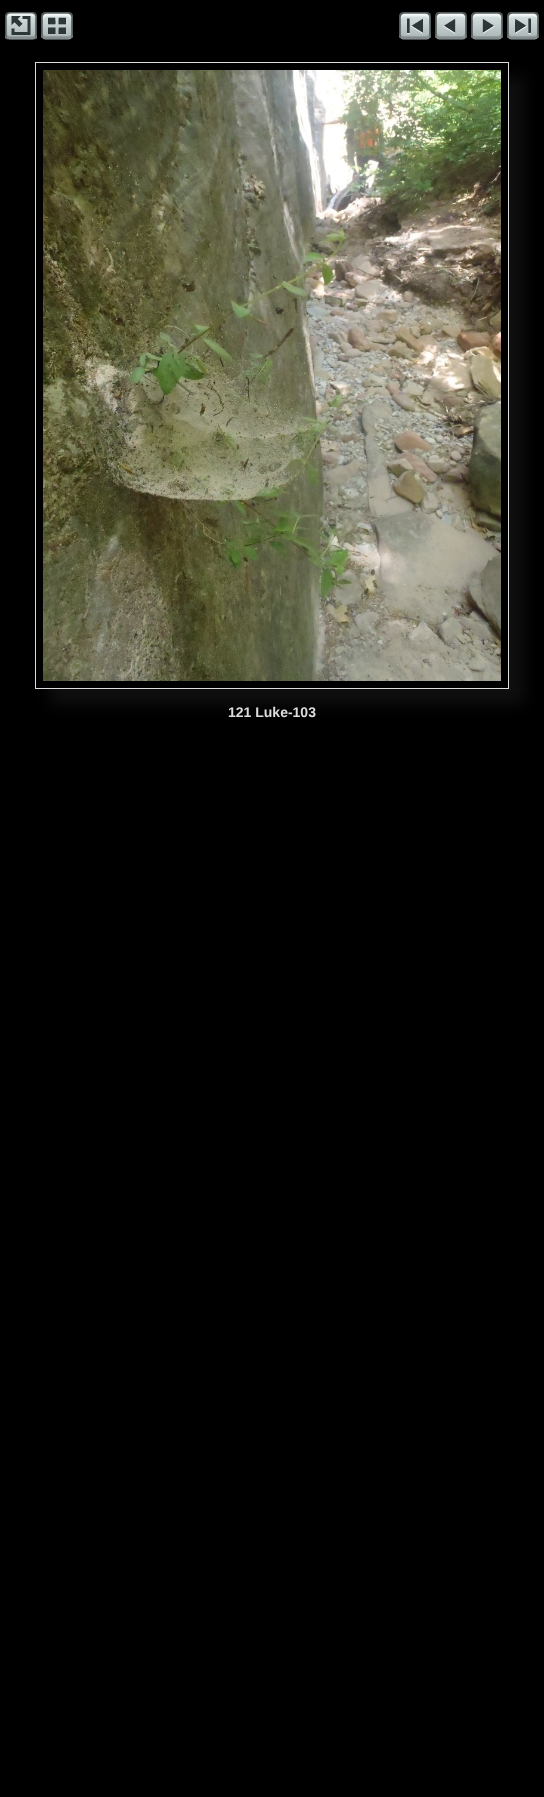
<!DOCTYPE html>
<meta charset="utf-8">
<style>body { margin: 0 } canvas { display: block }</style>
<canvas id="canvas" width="544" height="1797"></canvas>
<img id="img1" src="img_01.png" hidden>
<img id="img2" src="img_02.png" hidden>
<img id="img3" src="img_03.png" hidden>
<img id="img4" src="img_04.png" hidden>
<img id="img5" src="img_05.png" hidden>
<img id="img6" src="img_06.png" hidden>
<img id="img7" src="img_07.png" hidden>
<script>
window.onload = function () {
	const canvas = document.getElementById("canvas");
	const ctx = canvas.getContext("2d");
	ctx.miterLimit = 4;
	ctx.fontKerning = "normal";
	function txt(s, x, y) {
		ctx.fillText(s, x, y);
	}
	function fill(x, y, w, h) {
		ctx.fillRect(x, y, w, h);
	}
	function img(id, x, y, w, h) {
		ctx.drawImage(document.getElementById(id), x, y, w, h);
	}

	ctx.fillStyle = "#000000";
	fill(0, 0, 544, 1797);
	img("img1", 5, 12, 32, 28);
	img("img2", 41, 12, 32, 28);
	img("img3", 399, 12, 32, 28);
	img("img4", 435, 12, 32, 28);
	img("img5", 471, 12, 32, 28);
	img("img6", 507, 12, 32, 28);
	ctx.save();
	ctx.beginPath();
	ctx.moveTo(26, 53);
	ctx.lineTo(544, 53);
	ctx.lineTo(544, 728);
	ctx.lineTo(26, 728);
	ctx.closePath();
	ctx.moveTo(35, 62);
	ctx.lineTo(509, 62);
	ctx.lineTo(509, 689);
	ctx.lineTo(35, 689);
	ctx.closePath();
	ctx.clip("evenodd");
	ctx.fillStyle = "rgba(51, 51, 51, 0.3)";
	ctx.filter = "blur(7.5px)";
	ctx.beginPath();
	ctx.rect(50, 77, 474, 627);
	ctx.fill();
	ctx.filter = "none";
	ctx.restore();
	ctx.strokeStyle = "#DDDDDD";
	ctx.strokeRect(35.5, 62.5, 473, 626);
	img("img7", 43, 70, 458, 611);
	ctx.font = "bold 14px Liberation Sans";
	ctx.fillStyle = "#DDDDDD";
	txt("121 Luke-103", 228, 717);
};
</script>
